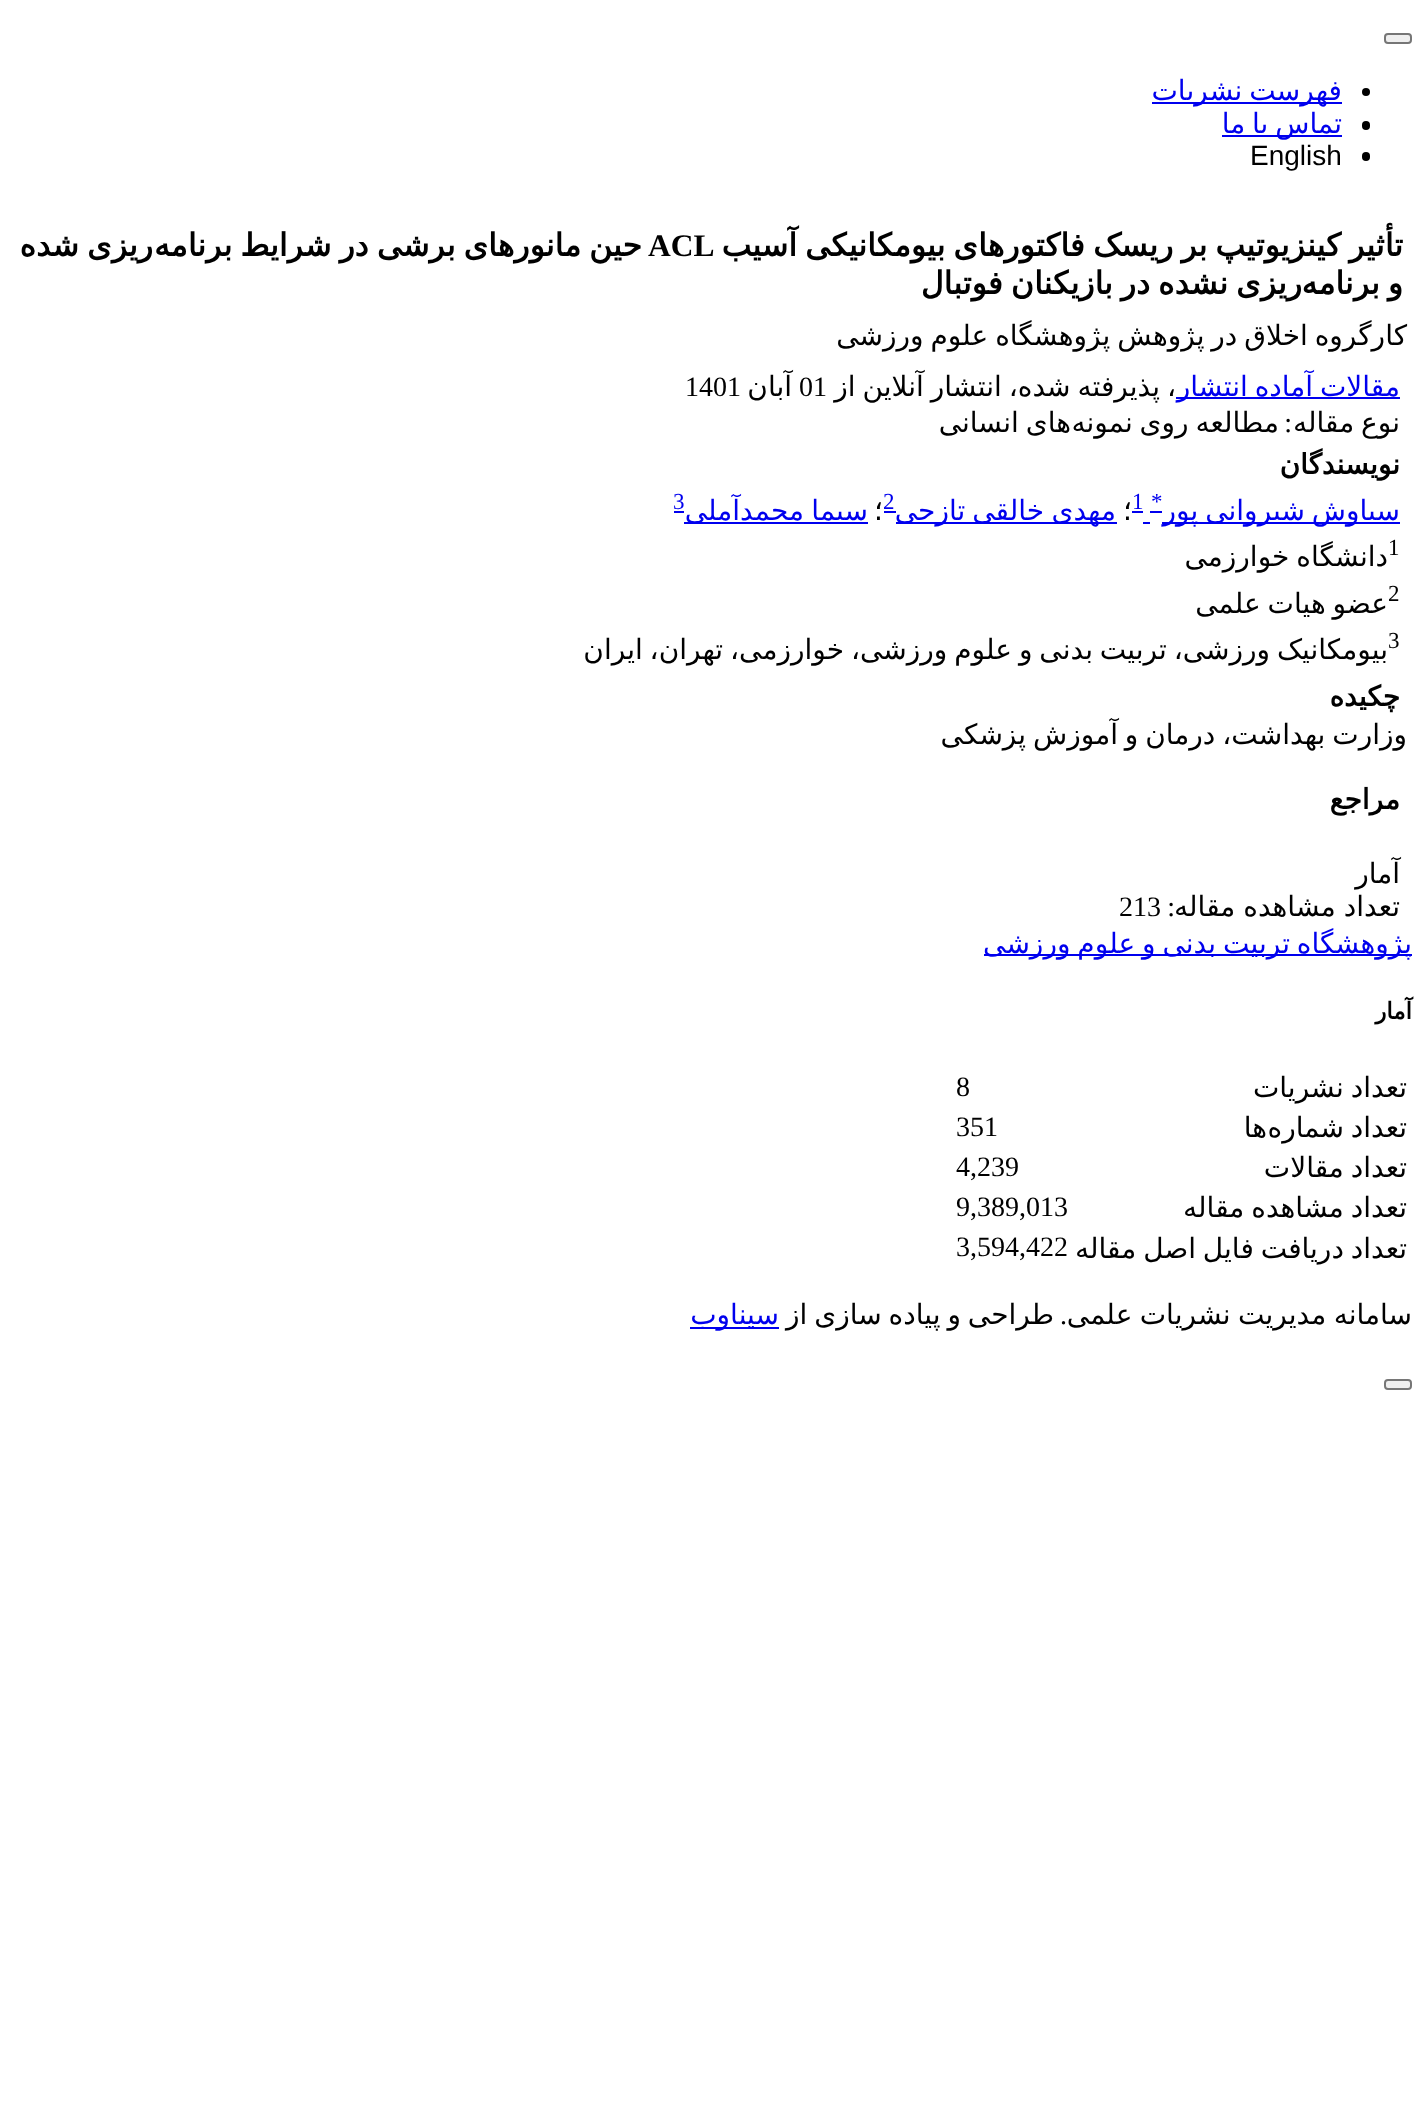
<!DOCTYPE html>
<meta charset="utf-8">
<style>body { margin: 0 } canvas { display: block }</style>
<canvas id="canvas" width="1425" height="2124"></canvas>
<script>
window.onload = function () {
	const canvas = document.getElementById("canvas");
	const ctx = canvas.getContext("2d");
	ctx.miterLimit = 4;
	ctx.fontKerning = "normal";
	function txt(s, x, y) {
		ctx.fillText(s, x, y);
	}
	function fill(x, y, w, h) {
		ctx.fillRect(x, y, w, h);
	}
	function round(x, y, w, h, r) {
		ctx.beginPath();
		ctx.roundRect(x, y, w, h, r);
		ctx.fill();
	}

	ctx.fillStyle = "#FFFFFF";
	fill(0, 0, 1425, 2124);
	ctx.fillStyle = "#EFEFEF";
	ctx.beginPath();
	ctx.roundRect(1385, 34, 26, 9, 3);
	ctx.fill();
	ctx.strokeStyle = "#767676";
	ctx.lineWidth = 2;
	ctx.stroke();
	ctx.fillStyle = "#000000";
	ctx.beginPath();
	ctx.arc(1366, 92, 4, 0, Math.PI * 2);
	ctx.fill();
	ctx.fillStyle = "#0000EE";
	fill(1152, 102, 190, 2);
	ctx.fillStyle = "#000000";
	round(1362, 121, 8, 9, 4);
	ctx.fillStyle = "#0000EE";
	fill(1222, 135, 120, 2);
	ctx.fillStyle = "#000000";
	round(1362, 152, 8, 9, 4);
	ctx.fillStyle = "#0000EE";
	fill(1176, 397, 224, 2);
	fill(1162, 522, 238, 2);
	fill(1150, 511, 12, 2);
	fill(1143, 522, 7, 2);
	fill(1132, 511, 11, 2);
	fill(896, 522, 221, 2);
	fill(884, 511, 12, 2);
	fill(684, 522, 184, 2);
	fill(674, 511, 10, 2);
	fill(984, 954, 428, 2);
	fill(690, 1327, 89, 2);
	ctx.fillStyle = "#EFEFEF";
	ctx.beginPath();
	ctx.roundRect(1385, 1380, 26, 9, 3);
	ctx.fill();
	ctx.stroke();
	ctx.wordSpacing = "-2px";
	ctx.direction = "rtl";
	ctx.font = "28px DejaVu Sans";
	ctx.fillStyle = "#0000EE";
	txt("فهرست نشریات", 1342, 100);
	txt("تماس با ما", 1342, 133);
	ctx.wordSpacing = "0px";
	ctx.direction = "ltr";
	ctx.font = "28px Liberation Sans";
	ctx.fillStyle = "#000000";
	txt("English", 1250, 165);
	ctx.wordSpacing = "-2px";
	ctx.direction = "rtl";
	ctx.font = "bold 31.5px DejaVu Sans";
	txt("تأثیر کینزیوتیپ بر ریسک فاکتورهای بیومکانیکی آسیب", 1403, 256);
	txt("حین مانورهای برشی در شرایط برنامه", 642, 256);
	ctx.wordSpacing = "0px";
	ctx.direction = "ltr";
	ctx.font = "bold 31.5px Liberation Serif";
	txt("ACL", 648, 256);
	ctx.wordSpacing = "-2px";
	ctx.direction = "rtl";
	ctx.font = "bold 31.5px DejaVu Sans";
	txt("ریزی شده", 153, 256);
	txt("ریزی نشده در بازیکنان فوتبال", 1302, 294);
	txt("و برنامه", 1403, 294);
	ctx.font = "28px DejaVu Sans";
	txt("کارگروه اخلاق در پژوهش پژوهشگاه علوم ورزشی", 1407, 345);
	ctx.fillStyle = "#0000EE";
	txt("مقالات آماده انتشار", 1400, 396);
	ctx.fillStyle = "#000000";
	txt("، پذیرفته شده، انتشار آنلاین از", 1176, 396);
	ctx.wordSpacing = "0px";
	ctx.direction = "ltr";
	ctx.font = "28px Liberation Serif";
	txt("01", 799, 396);
	ctx.direction = "rtl";
	ctx.font = "28px DejaVu Sans";
	txt("آبان", 792, 396);
	ctx.direction = "ltr";
	ctx.font = "28px Liberation Serif";
	txt("1401", 685, 396);
	ctx.wordSpacing = "-2px";
	ctx.direction = "rtl";
	ctx.font = "28px DejaVu Sans";
	txt("نوع مقاله", 1400, 432);
	ctx.wordSpacing = "0px";
	ctx.font = "28px Liberation Serif";
	txt(":", 1292, 432);
	ctx.wordSpacing = "-2px";
	ctx.font = "28px DejaVu Sans";
	txt("مطالعه روی نمونه", 1279, 432);
	txt("های انسانی", 1071, 432);
	ctx.wordSpacing = "0px";
	ctx.font = "bold 28px DejaVu Sans";
	txt("نویسندگان", 1400, 474);
	ctx.font = "28px DejaVu Sans";
	ctx.fillStyle = "#0000EE";
	txt("سیاوش", 1400, 520);
	ctx.wordSpacing = "-2px";
	txt("شیروانی پور", 1305, 520);
	ctx.wordSpacing = "0px";
	ctx.direction = "ltr";
	ctx.font = "23px Liberation Serif";
	txt("*", 1151, 509);
	txt("1", 1132, 509);
	ctx.direction = "rtl";
	ctx.font = "28px DejaVu Sans";
	ctx.fillStyle = "#000000";
	txt("؛", 1132, 520);
	ctx.fillStyle = "#0000EE";
	txt("مهدی", 1116, 520);
	ctx.wordSpacing = "-2px";
	txt("خالقی تازجی", 1044, 520);
	ctx.wordSpacing = "0px";
	ctx.direction = "ltr";
	ctx.font = "23px Liberation Serif";
	txt("2", 883, 509);
	ctx.direction = "rtl";
	ctx.font = "28px DejaVu Sans";
	ctx.fillStyle = "#000000";
	txt("؛", 883, 520);
	ctx.fillStyle = "#0000EE";
	txt("سیما", 868, 520);
	txt("محمدآملی", 804, 520);
	ctx.direction = "ltr";
	ctx.font = "23px Liberation Serif";
	txt("3", 673, 509);
	ctx.fillStyle = "#000000";
	txt("1", 1388, 555);
	ctx.wordSpacing = "-2px";
	ctx.direction = "rtl";
	ctx.font = "28px DejaVu Sans";
	txt("دانشگاه خوارزمی", 1388, 566);
	ctx.wordSpacing = "0px";
	ctx.direction = "ltr";
	ctx.font = "23px Liberation Serif";
	txt("2", 1388, 601);
	ctx.wordSpacing = "-2px";
	ctx.direction = "rtl";
	ctx.font = "28px DejaVu Sans";
	txt("عضو هیات علمی", 1388, 613);
	ctx.wordSpacing = "0px";
	ctx.direction = "ltr";
	ctx.font = "23px Liberation Serif";
	txt("3", 1388, 648);
	ctx.wordSpacing = "-2px";
	ctx.direction = "rtl";
	ctx.font = "28px DejaVu Sans";
	txt("بیومکانیک ورزشی، تربیت بدنی و علوم ورزشی، خوارزمی، تهران، ایران", 1388, 659);
	ctx.wordSpacing = "0px";
	ctx.font = "bold 28px DejaVu Sans";
	txt("چکیده", 1400, 706);
	ctx.wordSpacing = "-2px";
	ctx.font = "28px DejaVu Sans";
	txt("وزارت بهداشت، درمان و آموزش پزشکی", 1407, 744);
	ctx.wordSpacing = "0px";
	ctx.font = "bold 28px DejaVu Sans";
	txt("مراجع", 1400, 809);
	ctx.font = "28px DejaVu Sans";
	txt("آمار", 1400, 883);
	ctx.wordSpacing = "-1px";
	txt("تعداد مشاهده مقاله", 1400, 916);
	ctx.wordSpacing = "0px";
	ctx.font = "28px Liberation Serif";
	txt(":", 1175, 916);
	ctx.direction = "ltr";
	txt("213", 1119, 916);
	ctx.wordSpacing = "-2px";
	ctx.direction = "rtl";
	ctx.font = "28px DejaVu Sans";
	ctx.fillStyle = "#0000EE";
	txt("پژوهشگاه تربیت بدنی و علوم ورزشی", 1412, 953);
	ctx.wordSpacing = "0px";
	ctx.font = "bold 23px DejaVu Sans";
	ctx.fillStyle = "#000000";
	txt("آمار", 1412, 1019);
	ctx.wordSpacing = "-2px";
	ctx.font = "28px DejaVu Sans";
	txt("تعداد نشریات", 1407, 1097);
	ctx.wordSpacing = "0px";
	ctx.direction = "ltr";
	ctx.font = "28px Liberation Serif";
	txt("8", 956, 1096);
	ctx.wordSpacing = "-2px";
	ctx.direction = "rtl";
	ctx.font = "28px DejaVu Sans";
	txt("تعداد شماره", 1407, 1137);
	ctx.wordSpacing = "0px";
	txt("ها", 1267, 1137);
	ctx.direction = "ltr";
	ctx.font = "28px Liberation Serif";
	txt("351", 956, 1136);
	ctx.wordSpacing = "-2px";
	ctx.direction = "rtl";
	ctx.font = "28px DejaVu Sans";
	txt("تعداد مقالات", 1407, 1177);
	ctx.wordSpacing = "0px";
	ctx.direction = "ltr";
	ctx.font = "28px Liberation Serif";
	txt("4,239", 956, 1176);
	ctx.wordSpacing = "-2px";
	ctx.direction = "rtl";
	ctx.font = "28px DejaVu Sans";
	txt("تعداد مشاهده مقاله", 1407, 1217);
	ctx.wordSpacing = "0px";
	ctx.direction = "ltr";
	ctx.font = "28px Liberation Serif";
	txt("9,389,013", 956, 1216);
	ctx.wordSpacing = "-2px";
	ctx.direction = "rtl";
	ctx.font = "28px DejaVu Sans";
	txt("تعداد دریافت فایل اصل مقاله", 1407, 1258);
	ctx.wordSpacing = "0px";
	ctx.direction = "ltr";
	ctx.font = "28px Liberation Serif";
	txt("3,594,422", 956, 1256);
	ctx.wordSpacing = "-1.5px";
	ctx.direction = "rtl";
	ctx.font = "28px DejaVu Sans";
	txt("سامانه مدیریت نشریات علمی", 1412, 1324);
	ctx.wordSpacing = "0px";
	ctx.font = "28px Liberation Serif";
	txt(".", 1067, 1324);
	ctx.wordSpacing = "-2px";
	ctx.font = "28px DejaVu Sans";
	txt("طراحی و پیاده سازی از", 1054, 1324);
	ctx.wordSpacing = "0px";
	ctx.fillStyle = "#0000EE";
	txt("سیناوب", 779, 1324);
};
</script>
